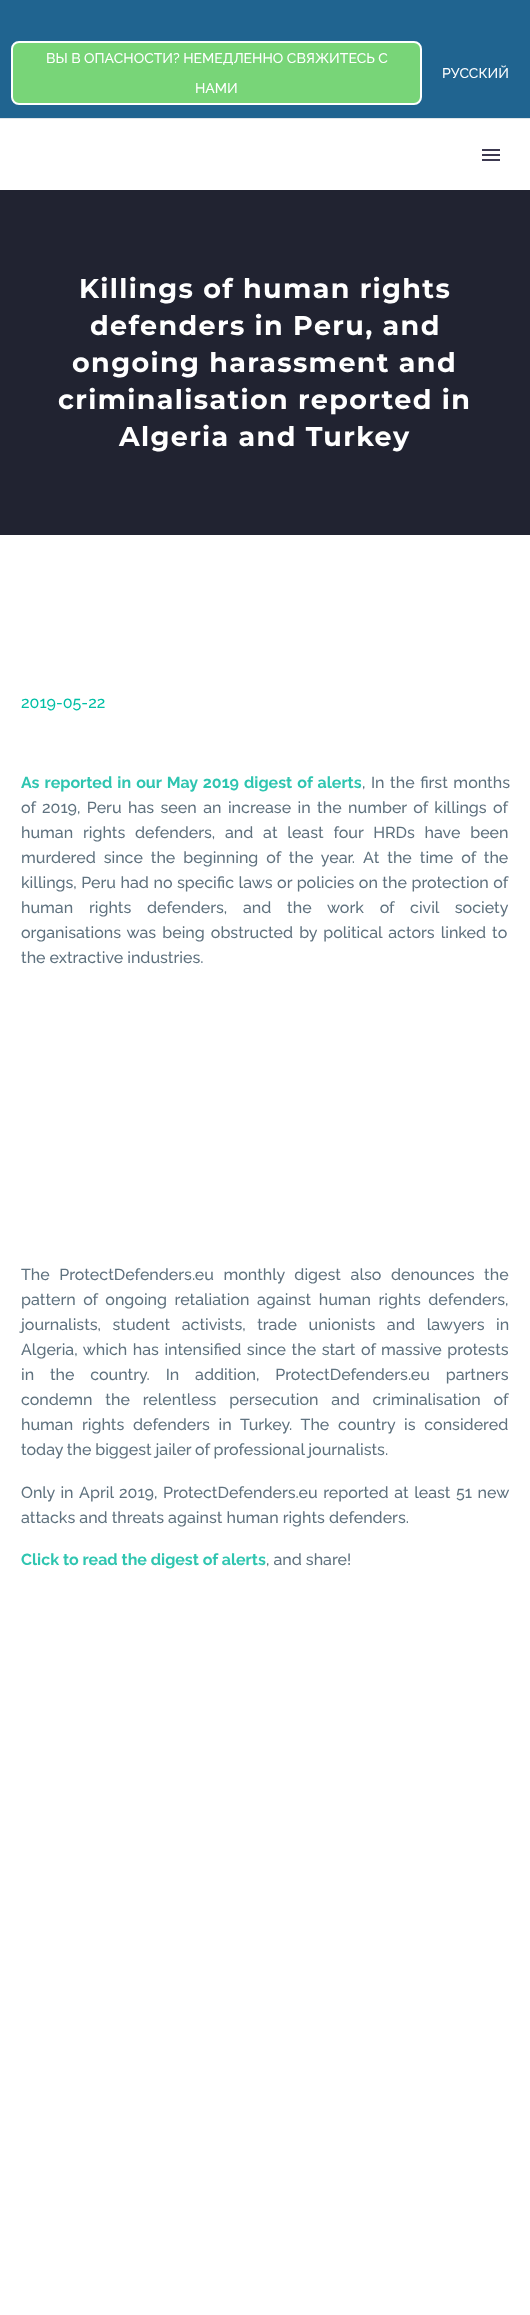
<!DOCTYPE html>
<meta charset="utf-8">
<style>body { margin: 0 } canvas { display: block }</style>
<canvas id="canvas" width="530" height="2315"></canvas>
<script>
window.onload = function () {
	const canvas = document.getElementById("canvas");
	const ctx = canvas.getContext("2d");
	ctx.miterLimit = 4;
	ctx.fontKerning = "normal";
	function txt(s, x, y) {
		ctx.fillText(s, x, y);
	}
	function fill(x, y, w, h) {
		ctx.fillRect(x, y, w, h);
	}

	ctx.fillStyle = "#FFFFFF";
	fill(0, 0, 530, 2315);
	ctx.fillStyle = "#206490";
	fill(0, 0, 530, 118);
	ctx.fillStyle = "#DFE5E8";
	fill(0, 118, 530, 1);
	ctx.fillStyle = "#78D578";
	ctx.beginPath();
	ctx.roundRect(12, 42, 409, 62, 7);
	ctx.fill();
	ctx.strokeStyle = "#FFFFFF";
	ctx.lineWidth = 2;
	ctx.stroke();
	ctx.fillStyle = "#3C3950";
	fill(482, 149, 18, 2);
	fill(482, 154, 18, 2);
	fill(482, 159, 18, 2);
	ctx.fillStyle = "#212331";
	fill(0, 190, 530, 345);
	ctx.font = "500 14px Raleway";
	ctx.fillStyle = "#FFFFFF";
	txt("ВЫ В ОПАСНОСТИ? НЕМЕДЛЕННО СВЯЖИТЕСЬ С", 46, 63);
	txt("НАМИ", 195, 93);
	txt("РУССКИЙ", 442, 78);
	ctx.letterSpacing = "1.35px";
	ctx.font = "bold 27px Montserrat";
	txt("Killings of human rights", 79, 298);
	txt("defenders in Peru, and", 90, 335);
	txt("ongoing harassment and", 72, 372);
	txt("criminalisation reported in", 58, 409);
	txt("Algeria and Turkey", 119, 446);
	ctx.letterSpacing = "0px";
	ctx.font = "500 16px Raleway";
	ctx.fillStyle = "#00BFA5";
	txt("2019-05-22", 21, 708);
	ctx.wordSpacing = "1.25px";
	ctx.font = "bold 16px Raleway";
	ctx.fillStyle = "#2FC5B0";
	txt("As reported in our May 2019 digest of alerts", 21, 788);
	ctx.wordSpacing = "1.5px";
	ctx.font = "500 16px Raleway";
	ctx.fillStyle = "#5F727F";
	txt(", In the first months", 362, 788);
	ctx.wordSpacing = "2.4px";
	txt("of 2019, Peru has seen an increase in the number of killings of", 21, 813);
	ctx.wordSpacing = "5.75px";
	txt("human rights defenders, and at least four HRDs have been", 21, 838);
	ctx.wordSpacing = "3.9px";
	txt("murdered since the beginning of the year. At the time of the", 21, 863);
	ctx.wordSpacing = "0.5px";
	txt("killings, Peru had no specific laws or policies on the protection of", 21, 888);
	ctx.wordSpacing = "11.75px";
	txt("human rights defenders, and the work of civil society", 21, 913);
	ctx.wordSpacing = "2px";
	txt("organisations was being obstructed by political actors linked to", 21, 938);
	ctx.wordSpacing = "0px";
	txt("the extractive industries.", 21, 963);
	ctx.wordSpacing = "5.5px";
	txt("The ProtectDefenders.eu monthly digest also denounces the", 21, 1280);
	ctx.wordSpacing = "3.5px";
	txt("pattern of ongoing retaliation against human rights defenders,", 21, 1305);
	ctx.wordSpacing = "7.5px";
	txt("journalists, student activists, trade unionists and lawyers in", 21, 1330);
	ctx.wordSpacing = "1.5px";
	txt("Algeria, which has intensified since the start of massive protests", 21, 1355);
	ctx.wordSpacing = "11.75px";
	txt("in the country. In addition, ProtectDefenders.eu partners", 21, 1380);
	ctx.wordSpacing = "8.75px";
	txt("condemn the relentless persecution and criminalisation of", 21, 1405);
	ctx.wordSpacing = "4.75px";
	txt("human rights defenders in Turkey. The country is considered", 21, 1430);
	ctx.wordSpacing = "-0.25px";
	txt("today the biggest jailer of professional journalists.", 21, 1455);
	ctx.wordSpacing = "1.5px";
	txt("Only in April 2019, ProtectDefenders.eu reported at least 51 new", 21, 1498);
	ctx.wordSpacing = "0px";
	txt("attacks and threats against human rights defenders.", 21, 1523);
	ctx.font = "bold 16px Raleway";
	ctx.fillStyle = "#2FC5B0";
	txt("Click to read the digest of alerts", 21, 1565);
	ctx.font = "500 16px Raleway";
	ctx.fillStyle = "#5F727F";
	txt(", and share!", 266, 1565);
};
</script>
